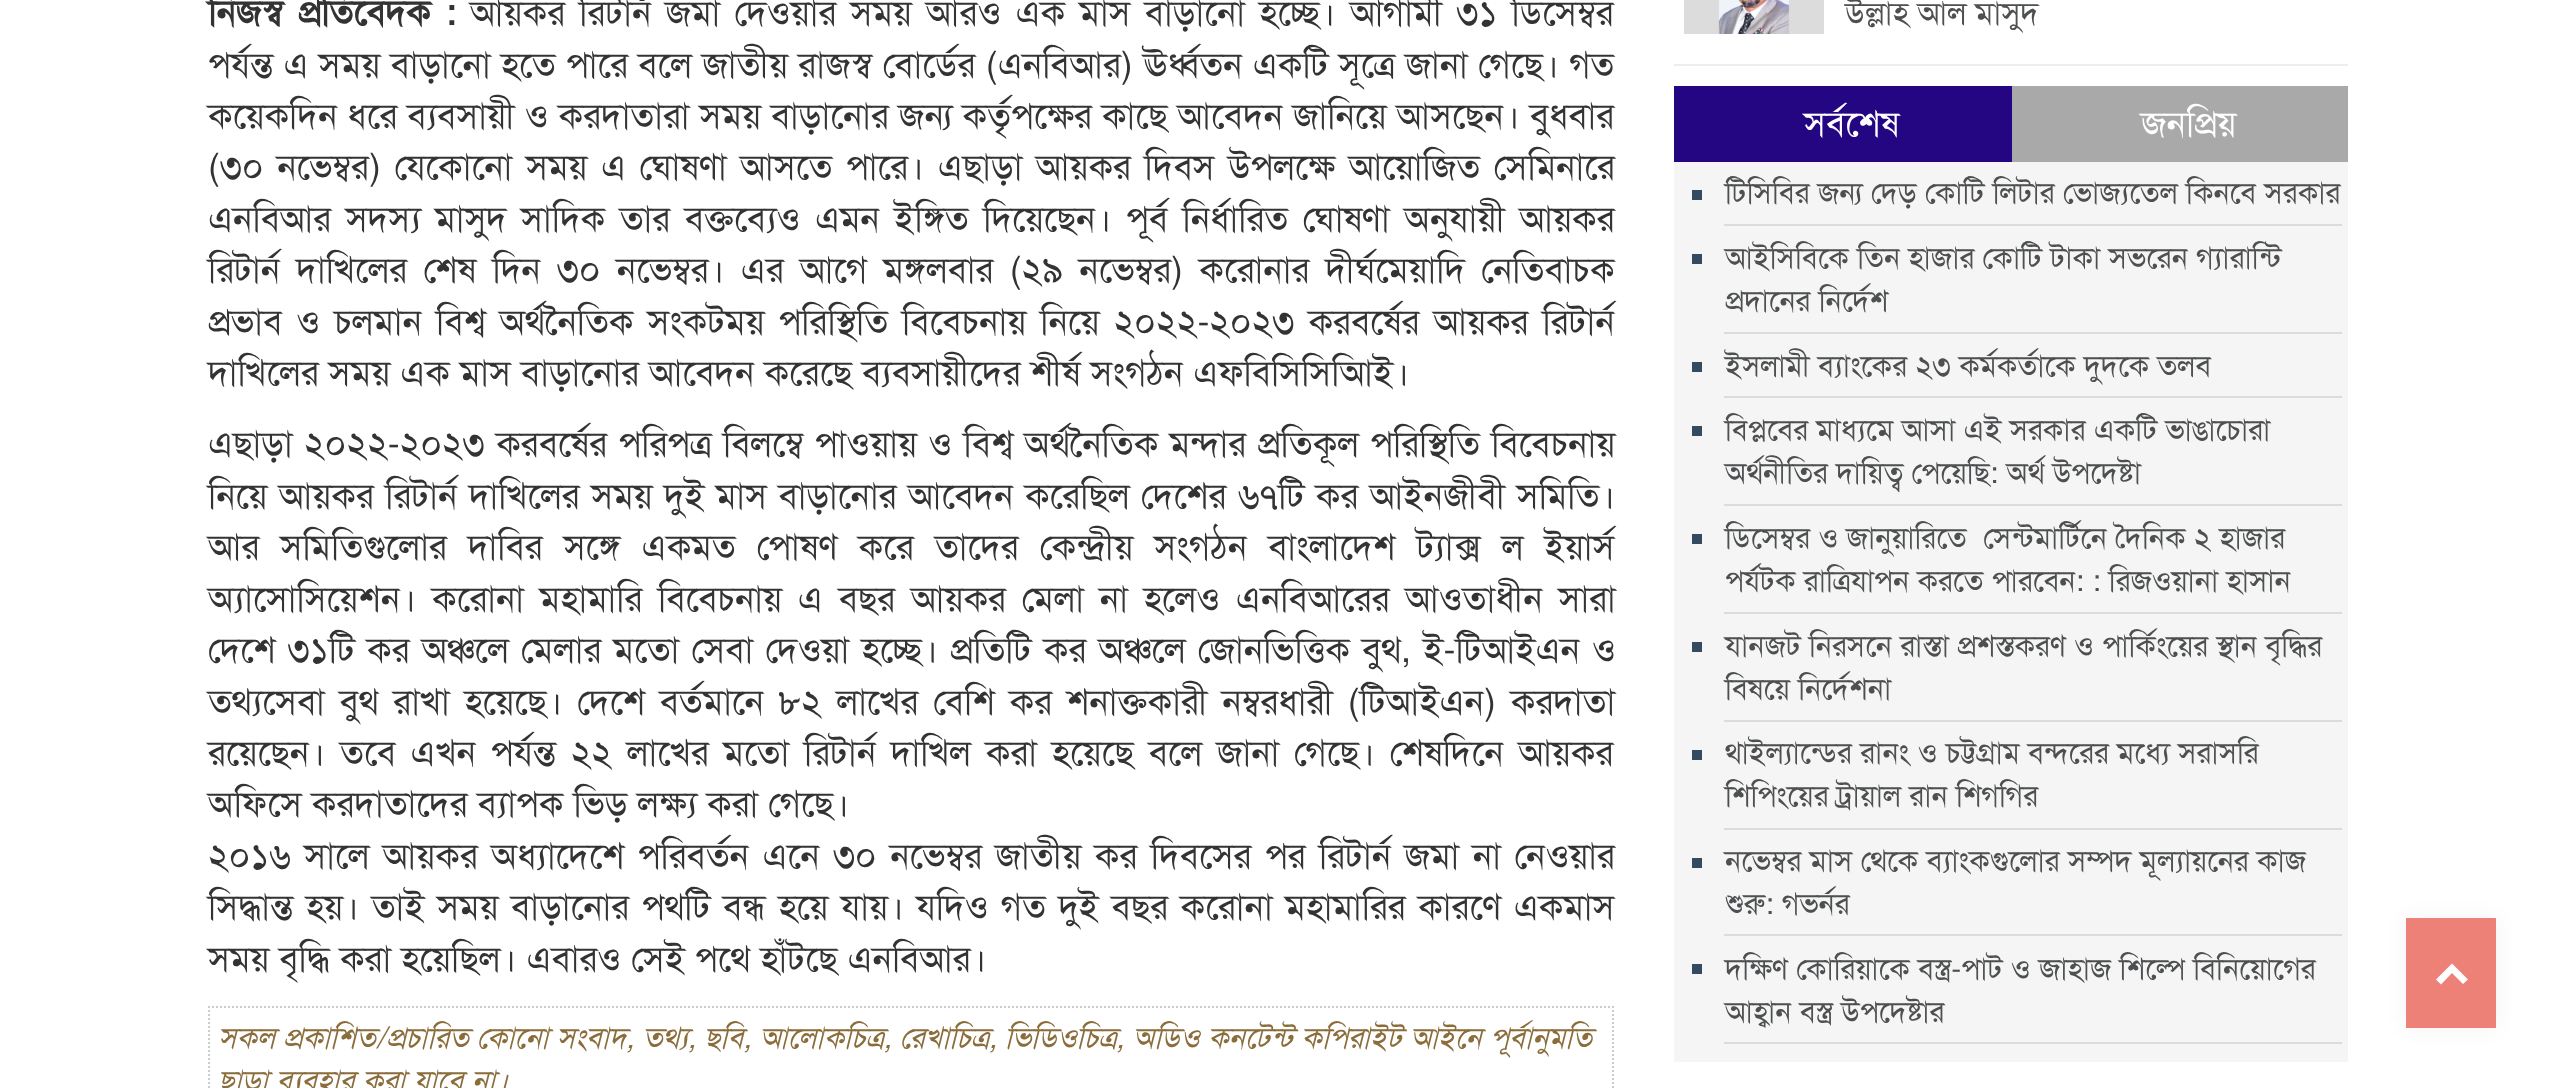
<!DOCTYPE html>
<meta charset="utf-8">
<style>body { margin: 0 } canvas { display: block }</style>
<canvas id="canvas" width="2555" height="1088"></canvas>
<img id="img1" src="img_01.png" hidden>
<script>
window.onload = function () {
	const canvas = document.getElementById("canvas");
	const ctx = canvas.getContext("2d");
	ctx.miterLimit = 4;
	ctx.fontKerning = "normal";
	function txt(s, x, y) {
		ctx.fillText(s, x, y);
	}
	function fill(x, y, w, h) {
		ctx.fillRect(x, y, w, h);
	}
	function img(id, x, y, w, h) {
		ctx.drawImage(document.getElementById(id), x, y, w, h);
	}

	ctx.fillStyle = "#FFFFFF";
	fill(0, 0, 2555, 1088);
	ctx.beginPath();
	ctx.moveTo(208, 1007);
	ctx.lineTo(1614, 1007);
	ctx.strokeStyle = "#CCCCCC";
	ctx.lineWidth = 2;
	ctx.setLineDash([2, 2]);
	ctx.stroke();
	ctx.beginPath();
	ctx.moveTo(1613, 1006);
	ctx.lineTo(1613, 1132);
	ctx.stroke();
	ctx.beginPath();
	ctx.moveTo(209, 1006);
	ctx.lineTo(209, 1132);
	ctx.stroke();
	ctx.fillStyle = "#EEEEEE";
	fill(1674, 64, 674, 2);
	img("img1", 1684, 0, 140, 34);
	ctx.fillStyle = "#240582";
	fill(1674, 86, 338, 76);
	ctx.fillStyle = "#A9A9A9";
	fill(2012, 86, 336, 76);
	ctx.fillStyle = "#F5F5F5";
	fill(1674, 162, 674, 900);
	ctx.fillStyle = "#DCDCDC";
	fill(1724, 224, 618, 2);
	ctx.fillStyle = "#344A60";
	fill(1692, 190, 10, 10);
	ctx.fillStyle = "#DCDCDC";
	fill(1724, 332, 618, 2);
	ctx.fillStyle = "#344A60";
	fill(1692, 254, 10, 10);
	ctx.fillStyle = "#DCDCDC";
	fill(1724, 396, 618, 2);
	ctx.fillStyle = "#344A60";
	fill(1692, 362, 10, 10);
	ctx.fillStyle = "#DCDCDC";
	fill(1724, 504, 618, 2);
	ctx.fillStyle = "#344A60";
	fill(1692, 426, 10, 10);
	ctx.fillStyle = "#DCDCDC";
	fill(1724, 612, 618, 2);
	ctx.fillStyle = "#344A60";
	fill(1692, 534, 10, 10);
	ctx.fillStyle = "#DCDCDC";
	fill(1724, 720, 618, 2);
	ctx.fillStyle = "#344A60";
	fill(1692, 642, 10, 10);
	ctx.fillStyle = "#DCDCDC";
	fill(1724, 828, 618, 2);
	ctx.fillStyle = "#344A60";
	fill(1692, 750, 10, 10);
	ctx.fillStyle = "#DCDCDC";
	fill(1724, 934, 618, 2);
	ctx.fillStyle = "#344A60";
	fill(1692, 858, 10, 10);
	ctx.fillStyle = "#DCDCDC";
	fill(1724, 1042, 618, 2);
	ctx.fillStyle = "#344A60";
	fill(1692, 964, 10, 10);
	ctx.fillStyle = "rgba(0, 0, 0, 0.05)";
	ctx.filter = "blur(10px)";
	ctx.beginPath();
	ctx.rect(2406, 918, 90, 110);
	ctx.fill();
	ctx.filter = "none";
	ctx.fillStyle = "#ED8178";
	fill(2406, 918, 90, 110);
	ctx.fillStyle = "#FFFFFF";
	ctx.beginPath();
	ctx.moveTo(2452, 963.5);
	ctx.lineTo(2468, 979.5);
	ctx.lineTo(2463, 984);
	ctx.lineTo(2452, 973);
	ctx.lineTo(2441, 984.5);
	ctx.lineTo(2436, 979.5);
	ctx.closePath();
	ctx.fill();
	ctx.wordSpacing = "5px";
	ctx.font = "bold 36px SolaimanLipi";
	ctx.fillStyle = "#333333";
	txt("নিজস্ব প্রতিবেদক :", 208, 25);
	ctx.wordSpacing = "4.25px";
	ctx.font = "36px SolaimanLipi";
	txt("আয়কর রিটার্ন জমা দেওয়ার সময় আরও এক মাস বাড়ানো হচ্ছে। আগামী ৩১ ডিসেম্বর", 470, 25);
	ctx.wordSpacing = "0.3px";
	txt("পর্যন্ত এ সময় বাড়ানো হতে পারে বলে জাতীয় রাজস্ব বোর্ডের (এনবিআর) ঊর্ধ্বতন একটি সূত্রে জানা গেছে। গত", 208, 77);
	ctx.wordSpacing = "0px";
	txt("কয়েকদিন ধরে ব্যবসায়ী ও করদাতারা সময় বাড়ানোর জন্য কর্তৃপক্ষের কাছে আবেদন জানিয়ে আসছেন। বুধবার", 208, 128);
	ctx.wordSpacing = "3.6px";
	txt("(৩০ নভেম্বর) যেকোনো সময় এ ঘোষণা আসতে পারে। এছাড়া আয়কর দিবস উপলক্ষে আয়োজিত সেমিনারে", 208, 179);
	ctx.wordSpacing = "4.5px";
	txt("এনবিআর সদস্য মাসুদ সাদিক তার বক্তব্যেও এমন ইঙ্গিত দিয়েছেন। পূর্ব নির্ধারিত ঘোষণা অনুযায়ী আয়কর", 208, 231);
	ctx.wordSpacing = "6.25px";
	txt("রিটার্ন দাখিলের শেষ দিন ৩০ নভেম্বর। এর আগে মঙ্গলবার (২৯ নভেম্বর) করোনার দীর্ঘমেয়াদি নেতিবাচক", 208, 282);
	ctx.wordSpacing = "4.1px";
	txt("প্রভাব ও চলমান বিশ্ব অর্থনৈতিক সংকটময় পরিস্থিতি বিবেচনায় নিয়ে ২০২২-২০২৩ করবর্ষের আয়কর রিটার্ন", 208, 334);
	ctx.wordSpacing = "0px";
	txt("দাখিলের সময় এক মাস বাড়ানোর আবেদন করেছে ব্যবসায়ীদের শীর্ষ সংগঠন এফবিসিসিআিই।", 208, 385);
	ctx.wordSpacing = "1.4px";
	txt("এছাড়া ২০২২-২০২৩ করবর্ষের পরিপত্র বিলম্বে পাওয়ায় ও বিশ্ব অর্থনৈতিক মন্দার প্রতিকূল পরিস্থিতি বিবেচনায়", 208, 456);
	ctx.wordSpacing = "1.5px";
	txt("নিয়ে আয়কর রিটার্ন দাখিলের সময় দুই মাস বাড়ানোর আবেদন করেছিল দেশের ৬৭টি কর আইনজীবী সমিতি।", 208, 508);
	ctx.wordSpacing = "11.1px";
	txt("আর সমিতিগুলোর দাবির সঙ্গে একমত পোষণ করে তাদের কেন্দ্রীয় সংগঠন বাংলাদেশ ট্যাক্স ল ইয়ার্স", 208, 559);
	ctx.wordSpacing = "5.75px";
	txt("অ্যাসোসিয়েশন। করোনা মহামারি বিবেচনায় এ বছর আয়কর মেলা না হলেও এনবিআরের আওতাধীন সারা", 208, 611);
	ctx.wordSpacing = "2.25px";
	txt("দেশে ৩১টি কর অঞ্চলে মেলার মতো সেবা দেওয়া হচ্ছে। প্রতিটি কর অঞ্চলে জোনভিত্তিক বুথ, ই-টিআইএন ও", 208, 662);
	ctx.wordSpacing = "4.75px";
	txt("তথ্যসেবা বুথ রাখা হয়েছে। দেশে বর্তমানে ৮২ লাখের বেশি কর শনাক্তকারী নম্বরধারী (টিআইএন) করদাতা", 208, 714);
	txt("রয়েছেন। তবে এখন পর্যন্ত ২২ লাখের মতো রিটার্ন দাখিল করা হয়েছে বলে জানা গেছে। শেষদিনে আয়কর", 208, 765);
	ctx.wordSpacing = "0px";
	txt("অফিসে করদাতাদের ব্যাপক ভিড় লক্ষ্য করা গেছে।", 208, 816);
	ctx.wordSpacing = "3.5px";
	txt("২০১৬ সালে আয়কর অধ্যাদেশে পরিবর্তন এনে ৩০ নভেম্বর জাতীয় কর দিবসের পর রিটার্ন জমা না নেওয়ার", 208, 868);
	ctx.wordSpacing = "2.6px";
	txt("সিদ্ধান্ত হয়। তাই সময় বাড়ানোর পথটি বন্ধ হয়ে যায়। যদিও গত দুই বছর করোনা মহামারির কারণে একমাস", 208, 919);
	ctx.wordSpacing = "0px";
	txt("সময় বৃদ্ধি করা হয়েছিল। এবারও সেই পথে হাঁটছে এনবিআর।", 208, 971);
	ctx.wordSpacing = "-0.25px";
	ctx.font = "italic 30px SolaimanLipi";
	ctx.fillStyle = "#8A6D3B";
	txt("সকল প্রকাশিত/প্রচারিত কোনো সংবাদ, তথ্য, ছবি, আলোকচিত্র, রেখাচিত্র,", 218, 1048);
	ctx.wordSpacing = "0px";
	txt("ভিডিওচিত্র, অডিও কনটেন্ট কপিরাইট আইনে পূর্বানুমতি", 1005, 1048);
	txt("ছাড়া ব্যবহার করা যাবে না।", 218, 1091);
	ctx.save();
	ctx.beginPath();
	ctx.rect(1844, 0, 494, 46);
	ctx.clip();
	ctx.font = "32px SolaimanLipi";
	ctx.fillStyle = "#4D4F50";
	txt("উল্লাহ আল মাসুদ", 1845, 24);
	ctx.restore();
	ctx.font = "36px SolaimanLipi";
	ctx.fillStyle = "#FFFFFF";
	txt("সর্বশেষ", 1804, 136);
	txt("জনপ্রিয়", 2141, 136);
	ctx.font = "30px SolaimanLipi";
	ctx.fillStyle = "#4D4F50";
	txt("টিসিবির জন্য দেড় কোটি লিটার ভোজ্যতেল কিনবে সরকার", 1725, 203);
	txt("আইসিবিকে তিন হাজার কোটি টাকা সভরেন গ্যারান্টি", 1725, 268);
	txt("প্রদানের নির্দেশ", 1725, 311);
	txt("ইসলামী ব্যাংকের ২৩ কর্মকর্তাকে দুদকে তলব", 1725, 376);
	txt("বিপ্লবের মাধ্যমে আসা এই সরকার একটি ভাঙাচোরা", 1725, 440);
	txt("অর্থনীতির দায়িত্ব পেয়েছি: অর্থ উপদেষ্টা", 1725, 483);
	txt("ডিসেম্বর ও জানুয়ারিতে  সেন্টমার্টিনে দৈনিক ২ হাজার", 1725, 548);
	txt("পর্যটক রাত্রিযাপন করতে পারবেন: : রিজওয়ানা হাসান", 1725, 591);
	txt("যানজট নিরসনে রাস্তা প্রশস্তকরণ ও পার্কিংয়ের স্থান বৃদ্ধির", 1725, 656);
	txt("বিষয়ে নির্দেশনা", 1725, 699);
	txt("থাইল্যান্ডের রানং ও চট্টগ্রাম বন্দরের মধ্যে সরাসরি", 1725, 763);
	txt("শিপিংয়ের ট্রায়াল রান শিগগির", 1725, 806);
	txt("নভেম্বর মাস থেকে ব্যাংকগুলোর সম্পদ মূল্যায়নের কাজ", 1725, 871);
	txt("শুরু: গভর্নর", 1725, 914);
	txt("দক্ষিণ কোরিয়াকে বস্ত্র-পাট ও জাহাজ শিল্পে বিনিয়োগের", 1725, 979);
	txt("আহ্বান বস্ত্র উপদেষ্টার", 1725, 1022);
};
</script>
